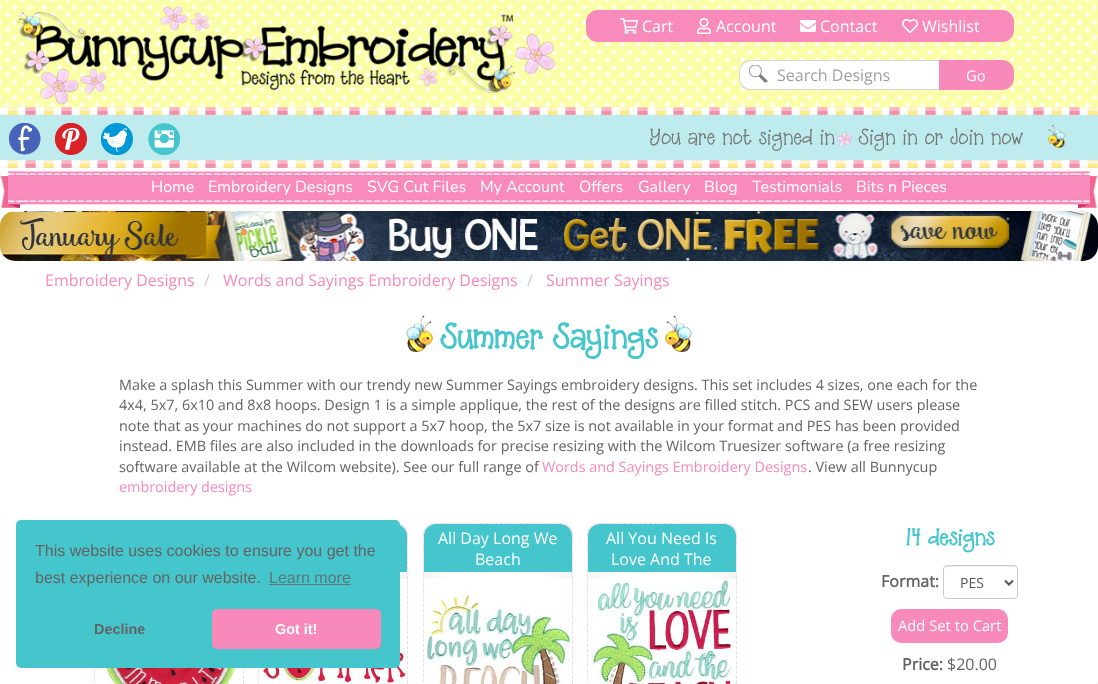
<!DOCTYPE html>
<meta charset="utf-8">
<style>body { margin: 0 } canvas { display: block }</style>
<canvas id="canvas" width="1098" height="684"></canvas>
<img id="img1" src="img_01.png" hidden>
<img id="img2" src="img_02.png" hidden>
<img id="img3" src="img_03.png" hidden>
<img id="img4" src="img_04.png" hidden>
<img id="img5" src="img_05.png" hidden>
<img id="img6" src="img_06.png" hidden>
<img id="img7" src="img_07.png" hidden>
<img id="img8" src="img_08.png" hidden>
<img id="img9" src="img_09.png" hidden>
<img id="img10" src="img_10.png" hidden>
<img id="img11" src="img_11.png" hidden>
<img id="img12" src="img_12.png" hidden>
<img id="img13" src="img_13.png" hidden>
<img id="img14" src="img_14.png" hidden>
<img id="img15" src="img_15.png" hidden>
<img id="img16" src="img_16.png" hidden>
<img id="img17" src="img_17.png" hidden>
<img id="img18" src="img_18.png" hidden>
<img id="img19" src="img_19.png" hidden>
<img id="img20" src="img_20.png" hidden>
<img id="img21" src="img_21.png" hidden>
<img id="img22" src="img_22.png" hidden>
<img id="img23" src="img_23.png" hidden>
<img id="img24" src="img_24.png" hidden>
<img id="img25" src="img_25.png" hidden>
<script>
window.onload = function () {
	const canvas = document.getElementById("canvas");
	const ctx = canvas.getContext("2d");
	ctx.miterLimit = 4;
	ctx.fontKerning = "normal";
	function txt(s, x, y) {
		ctx.fillText(s, x, y);
	}
	function fill(x, y, w, h) {
		ctx.fillRect(x, y, w, h);
	}
	function round(x, y, w, h, r) {
		ctx.beginPath();
		ctx.roundRect(x, y, w, h, r);
		ctx.fill();
	}
	function img(id, x, y, w, h) {
		ctx.drawImage(document.getElementById(id), x, y, w, h);
	}
	let gradient;

	ctx.fillStyle = "#FFFFFF";
	fill(0, 0, 1098, 684);
	img("img1", 0, 0, 1098, 115);
	img("img2", 16, 6, 539, 99);
	ctx.fillStyle = "#F88BBB";
	round(586, 10, 428, 32, 12);
	img("img3", 620, 18, 18, 16);
	img("img4", 697, 18, 14, 16);
	img("img5", 800, 20, 16, 12);
	img("img6", 902, 19, 16, 14);
	ctx.fillStyle = "#FFFFFF";
	ctx.beginPath();
	ctx.roundRect(739, 60, 200, 30, [12, 0, 0, 12]);
	ctx.fill();
	img("img7", 749, 65, 19, 18);
	ctx.fillStyle = "#D3D3D3";
	ctx.beginPath();
	ctx.moveTo(751, 60);
	ctx.lineTo(939, 60);
	ctx.lineTo(939, 90);
	ctx.lineTo(751, 90);
	ctx.bezierCurveTo(742, 90, 739, 83, 739, 75);
	ctx.bezierCurveTo(739, 67, 742, 60, 751, 60);
	ctx.closePath();
	ctx.moveTo(751, 61);
	ctx.lineTo(939, 61);
	ctx.lineTo(939, 89);
	ctx.lineTo(751, 89);
	ctx.bezierCurveTo(745, 89, 740, 84, 740, 78);
	ctx.lineTo(740, 72);
	ctx.bezierCurveTo(740, 66, 745, 61, 751, 61);
	ctx.closePath();
	ctx.fill("evenodd");
	ctx.fillStyle = "#F78ABA";
	ctx.beginPath();
	ctx.roundRect(939, 60, 75, 30, [0, 12, 12, 0]);
	ctx.fill();
	img("img8", 0, 107, 1098, 8);
	ctx.fillStyle = "#BEEBED";
	fill(0, 115, 1098, 53);
	img("img9", 9, 123, 32, 32);
	img("img10", 55, 123, 32, 32);
	img("img11", 101, 123, 32, 32);
	img("img12", 148, 123, 32, 32);
	img("img13", 837, 131, 15, 16);
	img("img14", 1048, 125, 17, 23);
	img("img15", 0, 160, 1098, 8);
	img("img16", 15, 171, 1068, 34);
	img("img17", 0, 171, 23, 37);
	img("img18", 1075, 171, 23, 37);
	img("img19", 0, 211, 1098, 50);
	img("img20", 406, 315, 27, 37);
	img("img21", 665, 315, 27, 37);
	gradient = ctx.createRadialGradient(21, 310.49, 0, 21, 310.49, 105);
	gradient.addColorStop(0, "#FFFFFF");
	gradient.addColorStop(0.65, "#FFFFFF");
	gradient.addColorStop(1, "#ECECEC");
	ctx.fillStyle = gradient;
	ctx.beginPath();
	ctx.rect(94, 668, 1, 16);
	ctx.save();
	ctx.clip();
	ctx.scale(1, 233 / 105);
	ctx.fillRect(0, 0, 1098, 309);
	ctx.restore();
	gradient = ctx.createRadialGradient(317, 310.49, 0, 317, 310.49, 105);
	gradient.addColorStop(0, "#FFFFFF");
	gradient.addColorStop(0.65, "#FFFFFF");
	gradient.addColorStop(1, "#ECECEC");
	ctx.fillStyle = gradient;
	ctx.beginPath();
	ctx.rect(243, 668, 1, 16);
	ctx.save();
	ctx.clip();
	ctx.scale(1, 233 / 105);
	ctx.fillRect(0, 0, 1098, 309);
	ctx.restore();
	ctx.beginPath();
	ctx.moveTo(106, 523.5);
	ctx.lineTo(232, 523.5);
	ctx.bezierCurveTo(238.5, 523.5, 243.5, 528.5, 243.5, 535);
	ctx.lineTo(243.5, 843);
	ctx.bezierCurveTo(243.5, 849.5, 238.5, 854.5, 232, 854.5);
	ctx.lineTo(106, 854.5);
	ctx.bezierCurveTo(99.5, 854.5, 94.5, 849.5, 94.5, 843);
	ctx.lineTo(94.5, 535);
	ctx.bezierCurveTo(94.5, 528.5, 99.5, 523.5, 106, 523.5);
	ctx.closePath();
	ctx.strokeStyle = "#FFD3E9";
	ctx.setLineDash([3, 2]);
	ctx.stroke();
	img("img22", 95, 668, 148, 16);
	gradient = ctx.createRadialGradient(185, 310.49, 0, 185, 310.49, 105);
	gradient.addColorStop(0, "#FFFFFF");
	gradient.addColorStop(0.65, "#FFFFFF");
	gradient.addColorStop(1, "#ECECEC");
	ctx.fillStyle = gradient;
	ctx.beginPath();
	ctx.rect(258, 668, 1, 16);
	ctx.save();
	ctx.clip();
	ctx.scale(1, 233 / 105);
	ctx.fillRect(0, 0, 1098, 309);
	ctx.restore();
	ctx.save();
	ctx.beginPath();
	ctx.roundRect(258, 523, 150, 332, 12);
	ctx.clip();
	gradient = ctx.createRadialGradient(333, 310.49, 0, 333, 310.49, 105);
	gradient.addColorStop(0, "#FFFFFF");
	gradient.addColorStop(0.65, "#FFFFFF");
	gradient.addColorStop(1, "#ECECEC");
	ctx.fillStyle = gradient;
	ctx.beginPath();
	ctx.rect(399, 524, 8, 55);
	ctx.save();
	ctx.clip();
	ctx.scale(1, 233 / 105);
	ctx.fillRect(0, 0, 1098, 309);
	ctx.restore();
	gradient = ctx.createRadialGradient(481, 310.49, 0, 481, 310.49, 105);
	gradient.addColorStop(0, "#FFFFFF");
	gradient.addColorStop(0.65, "#FFFFFF");
	gradient.addColorStop(1, "#ECECEC");
	ctx.fillStyle = gradient;
	ctx.beginPath();
	ctx.rect(407, 524, 1, 160);
	ctx.save();
	ctx.clip();
	ctx.scale(1, 233 / 105);
	ctx.fillRect(0, 0, 1098, 309);
	ctx.restore();
	ctx.restore();
	ctx.beginPath();
	ctx.moveTo(270, 523.5);
	ctx.lineTo(396, 523.5);
	ctx.bezierCurveTo(402.5, 523.5, 407.5, 528.5, 407.5, 535);
	ctx.lineTo(407.5, 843);
	ctx.bezierCurveTo(407.5, 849.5, 402.5, 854.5, 396, 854.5);
	ctx.lineTo(270, 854.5);
	ctx.bezierCurveTo(263.5, 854.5, 258.5, 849.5, 258.5, 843);
	ctx.lineTo(258.5, 535);
	ctx.bezierCurveTo(258.5, 528.5, 263.5, 523.5, 270, 523.5);
	ctx.closePath();
	ctx.stroke();
	ctx.fillStyle = "#45C6CC";
	ctx.beginPath();
	ctx.roundRect(259, 524, 148, 48, [12, 12, 0, 0]);
	ctx.fill();
	img("img23", 259, 579, 148, 105);
	ctx.save();
	ctx.beginPath();
	ctx.roundRect(423, 523, 150, 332, 12);
	ctx.clip();
	gradient = ctx.createRadialGradient(498, 161.78, 0, 498, 161.78, 105);
	gradient.addColorStop(0, "#FFFFFF");
	gradient.addColorStop(0.65, "#FFFFFF");
	gradient.addColorStop(1, "#ECECEC");
	ctx.fillStyle = gradient;
	ctx.beginPath();
	ctx.rect(424, 523, 148, 1);
	ctx.save();
	ctx.clip();
	ctx.scale(1, 233 / 105);
	ctx.fillRect(0, 0, 1098, 309);
	ctx.restore();
	gradient = ctx.createRadialGradient(350, 310.49, 0, 350, 310.49, 105);
	gradient.addColorStop(0, "#FFFFFF");
	gradient.addColorStop(0.65, "#FFFFFF");
	gradient.addColorStop(1, "#ECECEC");
	ctx.fillStyle = gradient;
	ctx.beginPath();
	ctx.rect(423, 524, 1, 160);
	ctx.save();
	ctx.clip();
	ctx.scale(1, 233 / 105);
	ctx.fillRect(0, 0, 1098, 309);
	ctx.restore();
	gradient = ctx.createRadialGradient(498, 310.49, 0, 498, 310.49, 105);
	gradient.addColorStop(0, "#FFFFFF");
	gradient.addColorStop(0.65, "#FFFFFF");
	gradient.addColorStop(1, "#ECECEC");
	ctx.fillStyle = gradient;
	ctx.beginPath();
	ctx.rect(424, 524, 148, 55);
	ctx.save();
	ctx.clip();
	ctx.scale(1, 233 / 105);
	ctx.fillRect(0, 0, 1098, 309);
	ctx.restore();
	gradient = ctx.createRadialGradient(646, 310.49, 0, 646, 310.49, 105);
	gradient.addColorStop(0, "#FFFFFF");
	gradient.addColorStop(0.65, "#FFFFFF");
	gradient.addColorStop(1, "#ECECEC");
	ctx.fillStyle = gradient;
	ctx.beginPath();
	ctx.rect(572, 524, 1, 160);
	ctx.save();
	ctx.clip();
	ctx.scale(1, 233 / 105);
	ctx.fillRect(0, 0, 1098, 309);
	ctx.restore();
	ctx.restore();
	ctx.beginPath();
	ctx.moveTo(435, 523.5);
	ctx.lineTo(561, 523.5);
	ctx.bezierCurveTo(567.5, 523.5, 572.5, 528.5, 572.5, 535);
	ctx.lineTo(572.5, 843);
	ctx.bezierCurveTo(572.5, 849.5, 567.5, 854.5, 561, 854.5);
	ctx.lineTo(435, 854.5);
	ctx.bezierCurveTo(428.5, 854.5, 423.5, 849.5, 423.5, 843);
	ctx.lineTo(423.5, 535);
	ctx.bezierCurveTo(423.5, 528.5, 428.5, 523.5, 435, 523.5);
	ctx.closePath();
	ctx.stroke();
	ctx.beginPath();
	ctx.roundRect(424, 524, 148, 48, [12, 12, 0, 0]);
	ctx.fill();
	img("img24", 424, 579, 148, 105);
	ctx.save();
	ctx.beginPath();
	ctx.roundRect(587, 523, 150, 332, 12);
	ctx.clip();
	gradient = ctx.createRadialGradient(662, 161.78, 0, 662, 161.78, 105);
	gradient.addColorStop(0, "#FFFFFF");
	gradient.addColorStop(0.65, "#FFFFFF");
	gradient.addColorStop(1, "#ECECEC");
	ctx.fillStyle = gradient;
	ctx.beginPath();
	ctx.rect(588, 523, 148, 1);
	ctx.save();
	ctx.clip();
	ctx.scale(1, 233 / 105);
	ctx.fillRect(0, 0, 1098, 309);
	ctx.restore();
	gradient = ctx.createRadialGradient(514, 310.49, 0, 514, 310.49, 105);
	gradient.addColorStop(0, "#FFFFFF");
	gradient.addColorStop(0.65, "#FFFFFF");
	gradient.addColorStop(1, "#ECECEC");
	ctx.fillStyle = gradient;
	ctx.beginPath();
	ctx.rect(587, 524, 1, 160);
	ctx.save();
	ctx.clip();
	ctx.scale(1, 233 / 105);
	ctx.fillRect(0, 0, 1098, 309);
	ctx.restore();
	gradient = ctx.createRadialGradient(662, 310.49, 0, 662, 310.49, 105);
	gradient.addColorStop(0, "#FFFFFF");
	gradient.addColorStop(0.65, "#FFFFFF");
	gradient.addColorStop(1, "#ECECEC");
	ctx.fillStyle = gradient;
	ctx.beginPath();
	ctx.rect(588, 524, 148, 55);
	ctx.save();
	ctx.clip();
	ctx.scale(1, 233 / 105);
	ctx.fillRect(0, 0, 1098, 309);
	ctx.restore();
	gradient = ctx.createRadialGradient(810, 310.49, 0, 810, 310.49, 105);
	gradient.addColorStop(0, "#FFFFFF");
	gradient.addColorStop(0.65, "#FFFFFF");
	gradient.addColorStop(1, "#ECECEC");
	ctx.fillStyle = gradient;
	ctx.beginPath();
	ctx.rect(736, 524, 1, 160);
	ctx.save();
	ctx.clip();
	ctx.scale(1, 233 / 105);
	ctx.fillRect(0, 0, 1098, 309);
	ctx.restore();
	ctx.restore();
	ctx.beginPath();
	ctx.moveTo(599, 523.5);
	ctx.lineTo(725, 523.5);
	ctx.bezierCurveTo(731.5, 523.5, 736.5, 528.5, 736.5, 535);
	ctx.lineTo(736.5, 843);
	ctx.bezierCurveTo(736.5, 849.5, 731.5, 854.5, 725, 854.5);
	ctx.lineTo(599, 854.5);
	ctx.bezierCurveTo(592.5, 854.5, 587.5, 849.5, 587.5, 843);
	ctx.lineTo(587.5, 535);
	ctx.bezierCurveTo(587.5, 528.5, 592.5, 523.5, 599, 523.5);
	ctx.closePath();
	ctx.stroke();
	ctx.beginPath();
	ctx.roundRect(588, 524, 148, 48, [12, 12, 0, 0]);
	ctx.fill();
	img("img25", 588, 579, 148, 105);
	ctx.fillStyle = "#ECECEC";
	ctx.beginPath();
	ctx.moveTo(947, 567);
	ctx.lineTo(1014, 567);
	ctx.bezierCurveTo(1016, 567, 1017, 568, 1017, 570);
	ctx.bezierCurveTo(1017, 563, 1007, 566, 1003, 566);
	ctx.lineTo(958, 566);
	ctx.bezierCurveTo(954, 566, 944, 563, 944, 570);
	ctx.bezierCurveTo(944, 568, 945, 567, 947, 567);
	ctx.closePath();
	ctx.fill();
	ctx.beginPath();
	ctx.roundRect(943.5, 565.5, 74, 33, 3.5);
	ctx.strokeStyle = "#CCCCCC";
	ctx.setLineDash([]);
	ctx.stroke();
	ctx.beginPath();
	ctx.moveTo(1005, 580.5);
	ctx.lineTo(1009, 584.5);
	ctx.lineTo(1013, 580.5);
	ctx.strokeStyle = "#555555";
	ctx.lineWidth = 2;
	ctx.stroke();
	ctx.fillStyle = "#F78ABA";
	round(891, 609, 117, 34, 10);
	ctx.fillStyle = "#45C6CC";
	round(16, 520, 384, 148, 5);
	ctx.fillStyle = "#5D7778";
	fill(269, 584, 82, 1);
	ctx.fillStyle = "#F78ABA";
	round(212, 609, 169, 40, 5);
	ctx.fillStyle = "#F5F5F5";
	fill(1096, 682, 2, 2);
	ctx.font = "16px Open Sans";
	ctx.fillStyle = "#FFFFFF";
	txt("Cart", 642, 32);
	txt("Account", 716, 32);
	txt("Contact", 820, 32);
	txt("Wishlist", 922, 32);
	ctx.fillStyle = "#A0A0A0";
	txt("Search Designs", 777, 81);
	ctx.font = "14.75px Open Sans";
	ctx.fillStyle = "#FFFFFF";
	txt("Go", 966, 81);
	ctx.font = "300 20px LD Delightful";
	ctx.fillStyle = "#757575";
	txt("You are not signed in", 649, 144);
	txt("Sign in or Join now", 859, 144);
	ctx.font = "16px Nunito";
	ctx.fillStyle = "#FFFFFF";
	txt("Home", 151, 192);
	txt("Embroidery Designs", 208, 192);
	txt("SVG Cut Files", 367, 192);
	txt("My Account", 480, 192);
	txt("Offers", 579, 192);
	txt("Gallery", 638, 192);
	txt("Blog", 704, 192);
	txt("Testimonials", 752, 192);
	txt("Bits n Pieces", 856, 192);
	ctx.font = "16px Open Sans";
	ctx.fillStyle = "#F78ABA";
	txt("Embroidery Designs", 45, 286);
	ctx.fillStyle = "#CCCCCC";
	txt("/", 204, 286);
	ctx.fillStyle = "#F78ABA";
	txt("Words and Sayings Embroidery Designs", 223, 286);
	ctx.fillStyle = "#CCCCCC";
	txt("/", 527, 286);
	ctx.fillStyle = "#F78ABA";
	txt("Summer Sayings", 546, 286);
	ctx.font = "bold 32px LD Delightful";
	ctx.fillStyle = "#45C6CC";
	txt("Summer Sayings", 441, 348);
	ctx.font = "14.4px Open Sans";
	ctx.fillStyle = "#636363";
	txt("Make a splash this Summer with our trendy new Summer Sayings embroidery designs. This set includes 4 sizes, one each for the", 119, 390);
	txt("4x4, 5x7, 6x10 and 8x8 hoops. Design 1 is a simple applique, the rest of the designs are filled stitch. PCS and SEW users please", 119, 410);
	txt("note that as your machines do not support a 5x7 hoop, the 5x7 size is not available in your format and PES has been provided", 119, 431);
	txt("instead. EMB files are also included in the downloads for precise resizing with the Wilcom Truesizer software (a free resizing", 119, 451);
	txt("software available at the Wilcom website). See our full range of", 119, 472);
	ctx.fillStyle = "#F78ABA";
	txt("Words and Sayings Embroidery Designs", 542, 472);
	ctx.fillStyle = "#636363";
	txt(". View all Bunnycup", 808, 472);
	ctx.fillStyle = "#F78ABA";
	txt("embroidery designs", 119, 492);
	ctx.font = "16px Open Sans";
	ctx.fillStyle = "#FFFFFF";
	txt("All Day Long We", 438, 544);
	txt("Beach", 475, 565);
	txt("All You Need Is", 606, 544);
	txt("Love And The", 611, 565);
	ctx.font = "bold 21.5px LD Delightful";
	ctx.fillStyle = "#45C6CC";
	txt("14 designs", 905, 545);
	ctx.font = "bold 16px Open Sans";
	ctx.fillStyle = "#636363";
	txt("Format:", 881, 587);
	ctx.font = "14px Open Sans";
	ctx.fillStyle = "#555555";
	txt("PES", 960, 588);
	ctx.font = "14.75px Open Sans";
	ctx.fillStyle = "#FFFFFF";
	txt("Add Set to Cart", 898, 631);
	ctx.font = "bold 16px Open Sans";
	ctx.fillStyle = "#636363";
	txt("Price:", 902, 670);
	ctx.font = "16px Open Sans";
	txt("$20.00", 947, 670);
	ctx.font = "16px Liberation Sans";
	txt("This website uses cookies to ensure you get the", 35, 556);
	txt("best experience on our website.", 35, 583);
	ctx.fillStyle = "#5D7778";
	txt("Learn more", 269, 583);
	ctx.font = "bold 14.4px Liberation Sans";
	ctx.fillStyle = "#636363";
	txt("Decline", 94, 634);
	ctx.fillStyle = "#FFFFFF";
	txt("Got it!", 275, 634);
};
</script>
